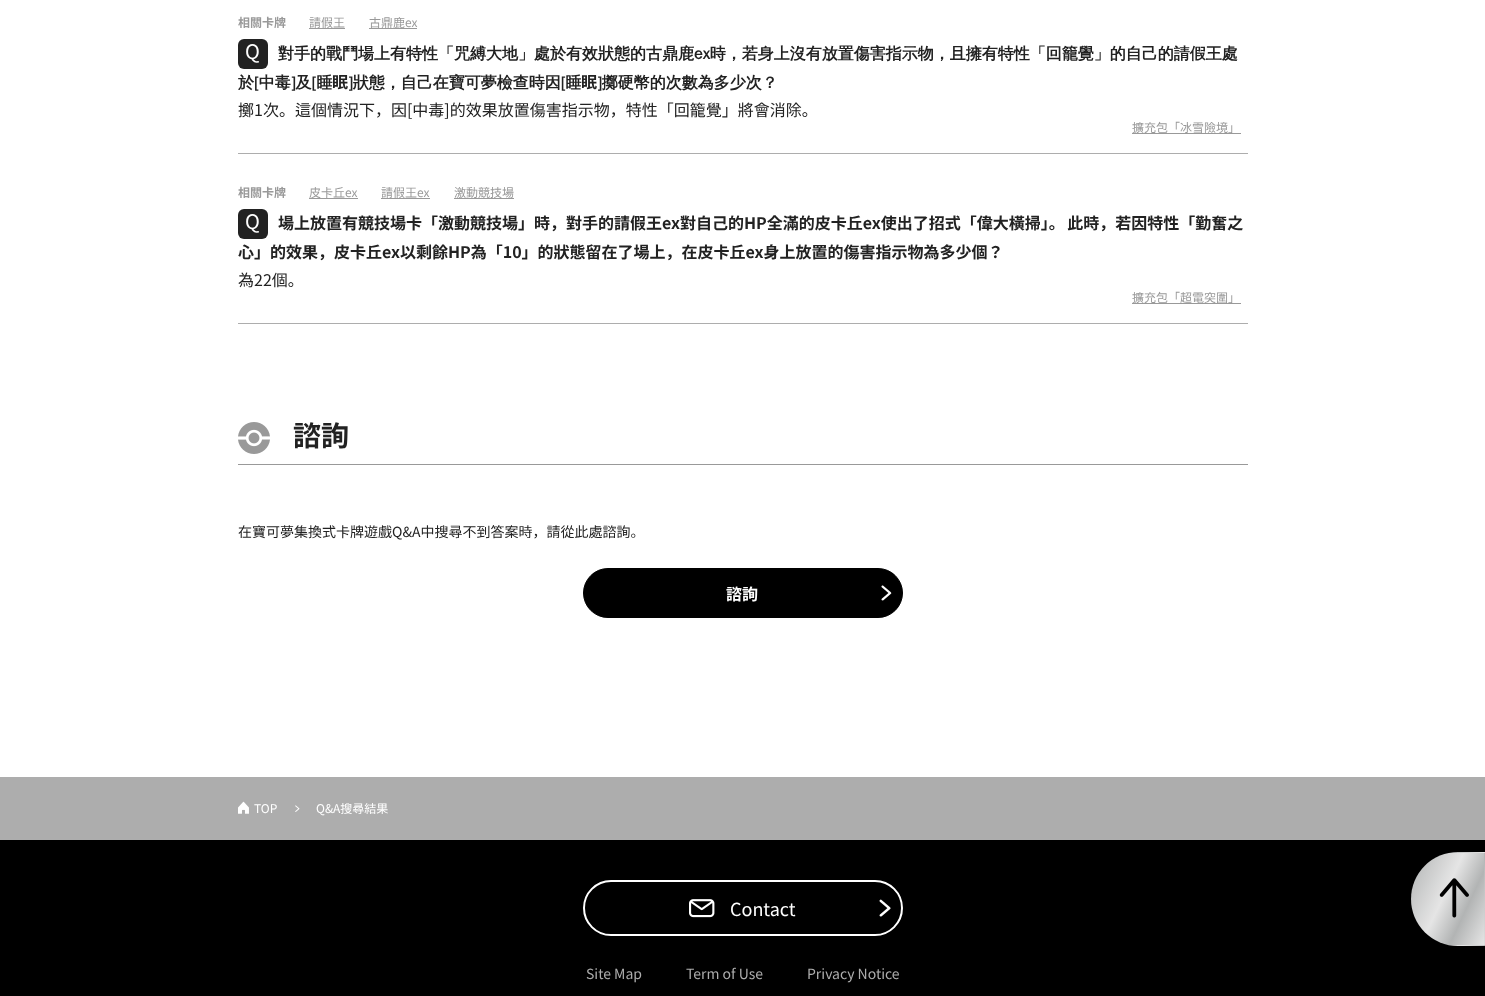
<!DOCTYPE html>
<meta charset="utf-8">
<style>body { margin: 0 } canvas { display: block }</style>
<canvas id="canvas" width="1485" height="996"></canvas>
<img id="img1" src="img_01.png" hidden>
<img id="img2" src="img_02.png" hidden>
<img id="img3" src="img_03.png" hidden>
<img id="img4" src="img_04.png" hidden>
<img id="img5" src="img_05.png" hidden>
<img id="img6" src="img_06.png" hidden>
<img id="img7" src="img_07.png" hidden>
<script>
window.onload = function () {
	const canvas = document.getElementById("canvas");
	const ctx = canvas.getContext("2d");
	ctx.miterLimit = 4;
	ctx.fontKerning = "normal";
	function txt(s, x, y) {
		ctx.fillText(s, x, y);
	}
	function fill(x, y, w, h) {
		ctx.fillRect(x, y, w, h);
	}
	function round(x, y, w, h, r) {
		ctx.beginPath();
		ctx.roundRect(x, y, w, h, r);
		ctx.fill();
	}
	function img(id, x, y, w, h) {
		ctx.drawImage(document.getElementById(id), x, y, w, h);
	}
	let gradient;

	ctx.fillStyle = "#FFFFFF";
	fill(0, 0, 1485, 996);
	ctx.fillStyle = "#ADADAD";
	fill(238, 153, 1010, 1);
	ctx.fillStyle = "#999999";
	fill(309, 28, 36, 1);
	fill(369, 28, 48, 1);
	ctx.fillStyle = "#222222";
	round(238, 39, 30, 30, 6);
	ctx.fillStyle = "#999999";
	fill(1132, 133, 109, 1);
	ctx.fillStyle = "#ADADAD";
	fill(238, 323, 1010, 1);
	ctx.fillStyle = "#999999";
	fill(309, 198, 49, 1);
	fill(381, 198, 49, 1);
	fill(454, 198, 60, 1);
	ctx.fillStyle = "#222222";
	round(238, 209, 30, 30, 6);
	ctx.fillStyle = "#999999";
	fill(1132, 303, 109, 1);
	fill(238, 464, 1010, 1);
	img("img1", 238, 422, 32, 32);
	ctx.fillStyle = "#000000";
	ctx.beginPath();
	ctx.roundRect(583.5, 568.5, 319, 49, 24.5);
	ctx.fill();
	ctx.strokeStyle = "#000000";
	ctx.stroke();
	img("img2", 881, 585, 11, 16);
	ctx.fillStyle = "#ADADAD";
	fill(0, 777, 1485, 63);
	img("img3", 238, 801, 11, 13);
	img("img4", 295, 805, 5, 7);
	ctx.fillStyle = "#000000";
	fill(0, 840, 1485, 156);
	ctx.beginPath();
	ctx.roundRect(584, 881, 318, 54, 27);
	ctx.strokeStyle = "#FFFFFF";
	ctx.lineWidth = 2;
	ctx.stroke();
	img("img5", 689, 899, 26, 19);
	img("img6", 879, 899, 12, 18);
	ctx.save();
	ctx.beginPath();
	ctx.roundRect(1411, 852, 74, 94, [47, 0, 0, 47]);
	ctx.clip();
	gradient = ctx.createLinearGradient(1401, 785, 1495, 829);
	gradient.addColorStop(0, "#B2B4B4");
	gradient.addColorStop(0.45, "#E5E5E5");
	gradient.addColorStop(0.7, "#B2B4B4");
	gradient.addColorStop(1, "#E5E5E5");
	ctx.fillStyle = gradient;
	fill(1448, 852, 36, 1);
	ctx.restore();
	gradient = ctx.createLinearGradient(1473, 785, 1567, 829);
	gradient.addColorStop(0, "#B2B4B4");
	gradient.addColorStop(0.45, "#E5E5E5");
	gradient.addColorStop(0.7, "#B2B4B4");
	gradient.addColorStop(1, "#E5E5E5");
	ctx.fillStyle = gradient;
	fill(1484, 852, 1, 1);
	ctx.save();
	ctx.beginPath();
	ctx.roundRect(1411, 852, 74, 94, [47, 0, 0, 47]);
	ctx.clip();
	gradient = ctx.createLinearGradient(1329, 877, 1423, 921);
	gradient.addColorStop(0, "#B2B4B4");
	gradient.addColorStop(0.45, "#E5E5E5");
	gradient.addColorStop(0.7, "#B2B4B4");
	gradient.addColorStop(1, "#E5E5E5");
	ctx.fillStyle = gradient;
	fill(1411, 889, 1, 20);
	gradient = ctx.createLinearGradient(1401, 877, 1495, 921);
	gradient.addColorStop(0, "#B2B4B4");
	gradient.addColorStop(0.45, "#E5E5E5");
	gradient.addColorStop(0.7, "#B2B4B4");
	gradient.addColorStop(1, "#E5E5E5");
	ctx.fillStyle = gradient;
	fill(1412, 853, 72, 92);
	ctx.restore();
	gradient = ctx.createLinearGradient(1473, 877, 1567, 921);
	gradient.addColorStop(0, "#B2B4B4");
	gradient.addColorStop(0.45, "#E5E5E5");
	gradient.addColorStop(0.7, "#B2B4B4");
	gradient.addColorStop(1, "#E5E5E5");
	ctx.fillStyle = gradient;
	fill(1484, 853, 1, 92);
	ctx.save();
	ctx.beginPath();
	ctx.roundRect(1411, 852, 74, 94, [47, 0, 0, 47]);
	ctx.clip();
	gradient = ctx.createLinearGradient(1401, 969, 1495, 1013);
	gradient.addColorStop(0, "#B2B4B4");
	gradient.addColorStop(0.45, "#E5E5E5");
	gradient.addColorStop(0.7, "#B2B4B4");
	gradient.addColorStop(1, "#E5E5E5");
	ctx.fillStyle = gradient;
	fill(1448, 945, 36, 1);
	ctx.restore();
	gradient = ctx.createLinearGradient(1473, 969, 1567, 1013);
	gradient.addColorStop(0, "#B2B4B4");
	gradient.addColorStop(0.45, "#E5E5E5");
	gradient.addColorStop(0.7, "#B2B4B4");
	gradient.addColorStop(1, "#E5E5E5");
	ctx.fillStyle = gradient;
	fill(1484, 945, 1, 1);
	img("img7", 1439, 878, 30, 40);
	ctx.font = "bold 12px Noto Sans JP";
	ctx.fillStyle = "#999999";
	txt("相關卡牌", 238, 27);
	ctx.font = "12px Noto Sans JP";
	txt("請假王", 309, 27);
	txt("古鼎鹿ex", 369, 27);
	ctx.font = "20px Noto Sans JP";
	ctx.fillStyle = "#FFFFFF";
	txt("Q", 245, 59);
	ctx.font = "bold 16px WenQuanYi Zen Hei";
	ctx.fillStyle = "#222222";
	txt("對手的戰鬥場上有特性「咒縛大地」處於有效狀態的古鼎鹿ex時，若身上沒有放置傷害指示物，且擁有特性「回籠覺」的自己的請假王處", 278, 59);
	txt("於[中毒]及[睡", 238, 88);
	ctx.font = "bold 16px Noto Sans JP";
	txt("眠", 332, 88);
	ctx.font = "bold 16px WenQuanYi Zen Hei";
	txt("]狀態，自己在寶可夢檢查時因[睡", 348, 88);
	ctx.font = "bold 16px Noto Sans JP";
	txt("眠", 581, 88);
	ctx.font = "bold 16px WenQuanYi Zen Hei";
	txt("]擲硬幣的次數為多少次？", 597, 88);
	ctx.font = "16px Noto Sans JP";
	txt("擲1次。這個情況下，因[中毒]的效果放置傷害指示物，特性「回籠覺」將會消除。", 238, 116);
	ctx.font = "12px Noto Sans JP";
	ctx.fillStyle = "#999999";
	txt("擴充包「冰雪險境」", 1132, 132);
	ctx.font = "bold 12px Noto Sans JP";
	txt("相關卡牌", 238, 197);
	ctx.font = "12px Noto Sans JP";
	txt("皮卡丘ex", 309, 197);
	txt("請假王ex", 381, 197);
	txt("激動競技場", 454, 197);
	ctx.font = "20px Noto Sans JP";
	ctx.fillStyle = "#FFFFFF";
	txt("Q", 245, 229);
	ctx.wordSpacing = "-1px";
	ctx.font = "bold 16px Noto Sans JP";
	ctx.fillStyle = "#222222";
	txt("場上放置有競技場卡「激動競技場」時，對手的請假王ex對自己的HP全滿的皮卡丘ex使出了招式「偉大橫掃」。 此時，若因特性「‌‌勤奮之", 278, 229);
	ctx.wordSpacing = "0px";
	txt("心」的效果，皮卡丘ex以剩餘HP為「10」的狀態留在了場上，在皮卡丘ex身上放置的傷害指示物為多少個？", 238, 258);
	ctx.font = "16px Noto Sans JP";
	txt("為22個。", 238, 286);
	ctx.font = "12px Noto Sans JP";
	ctx.fillStyle = "#999999";
	txt("擴充包「超電突圍」", 1132, 302);
	ctx.font = "bold 28px Noto Sans JP";
	ctx.fillStyle = "#222222";
	txt("諮詢", 293, 446);
	ctx.font = "14px Noto Sans JP";
	txt("在寶可夢集換式卡牌遊戲Q&A中搜尋不到答案時，請從此處諮詢。", 238, 537);
	ctx.font = "bold 16px Noto Sans JP";
	ctx.fillStyle = "#FFFFFF";
	txt("諮詢", 726, 600);
	ctx.font = "12px Noto Sans JP";
	txt("TOP", 254, 813);
	txt("Q&A搜尋結果", 316, 813);
	ctx.font = "18px Noto Sans JP";
	txt("Contact", 730, 916);
	ctx.font = "14px Noto Sans JP";
	ctx.fillStyle = "#ADADAD";
	txt("Site Map", 586, 979);
	txt("Term of Use", 686, 979);
	txt("Privacy Notice", 807, 979);
};
</script>
